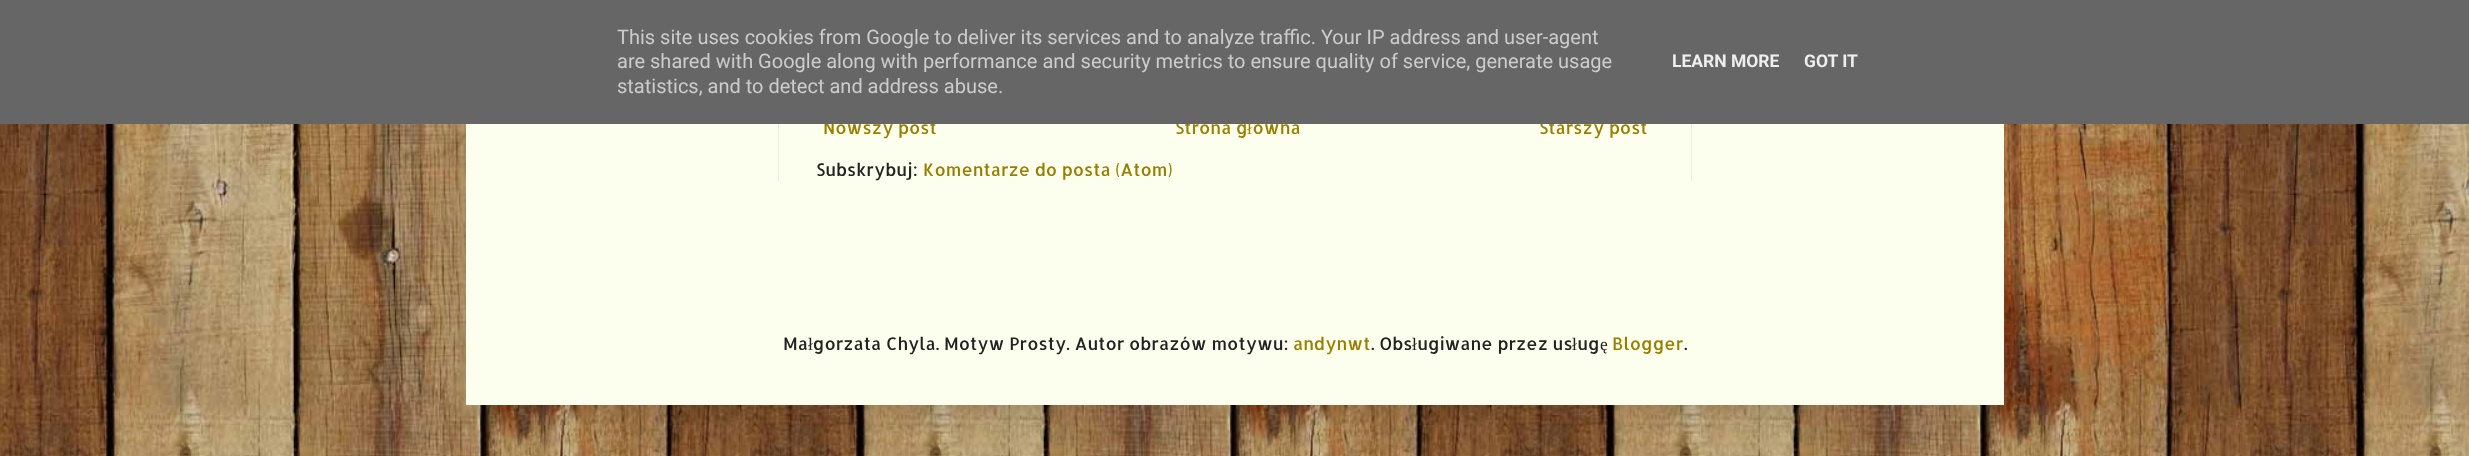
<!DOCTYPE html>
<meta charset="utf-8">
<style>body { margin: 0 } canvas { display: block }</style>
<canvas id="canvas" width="2469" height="456"></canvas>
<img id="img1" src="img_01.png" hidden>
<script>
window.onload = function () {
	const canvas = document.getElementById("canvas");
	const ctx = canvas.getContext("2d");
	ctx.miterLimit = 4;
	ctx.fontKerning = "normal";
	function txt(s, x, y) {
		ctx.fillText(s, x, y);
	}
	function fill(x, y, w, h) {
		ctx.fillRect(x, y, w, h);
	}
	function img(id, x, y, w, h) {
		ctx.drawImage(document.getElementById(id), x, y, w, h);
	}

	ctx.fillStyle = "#FFFFFF";
	fill(0, 0, 2469, 456);
	img("img1", 0, 124, 2469, 332);
	ctx.fillStyle = "rgba(0, 0, 0, 0.15)";
	ctx.filter = "blur(25px)";
	ctx.beginPath();
	ctx.rect(466, -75, 1538, 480);
	ctx.fill();
	ctx.filter = "none";
	ctx.fillStyle = "#FCFFEE";
	fill(466, 124, 1538, 281);
	ctx.fillStyle = "#EEEDDD";
	fill(778, 124, 1, 57);
	fill(1691, 124, 1, 57);
	ctx.font = "17.5px Allerta";
	ctx.fillStyle = "#997F00";
	txt("Nowszy post", 823, 134);
	txt("Strona g ówna", 1175, 134);
	ctx.font = "17.5px Liberation Serif";
	txt("ł", 1247, 134);
	ctx.font = "17.5px Allerta";
	txt("Starszy post", 1539, 134);
	ctx.fillStyle = "#666666";
	fill(0, 0, 2469, 124);
	ctx.font = "bold 17.5px Roboto";
	ctx.fillStyle = "#EEEEEE";
	txt("GOT IT", 1804, 67);
	txt("LEARN MORE", 1672, 67);
	ctx.font = "20px Roboto";
	ctx.fillStyle = "#CCCCCC";
	txt("statistics, and to detect and address abuse.", 617, 93);
	txt("are shared with Google along with performance and security metrics to ensure quality of service, generate usage", 617, 68);
	txt("This site uses cookies from Google to deliver its services and to analyze traffic. Your IP address and user-agent", 617, 44);
	ctx.font = "17.5px Allerta";
	ctx.fillStyle = "#222222";
	txt("Subskrybuj:", 816, 176);
	ctx.fillStyle = "#997F00";
	txt("Komentarze do posta (Atom)", 923, 176);
	ctx.fillStyle = "#222222";
	txt("Ma gorzata Chyla. Motyw Prosty. Autor obrazów motywu:", 783, 350);
	ctx.fillStyle = "#997F00";
	txt("andynwt", 1293, 350);
	ctx.fillStyle = "#222222";
	txt(". Obs ugiwane przez us ug", 1371, 350);
	ctx.fillStyle = "#997F00";
	txt("Blogger", 1612, 350);
	ctx.font = "17.5px Liberation Serif";
	ctx.fillStyle = "#222222";
	txt("ł", 808, 350);
	txt("ł", 1412, 350);
	txt("ł", 1572, 350);
	txt("ę", 1600, 350);
	ctx.font = "17.5px Allerta";
	txt(".", 1684, 350);
};
</script>
